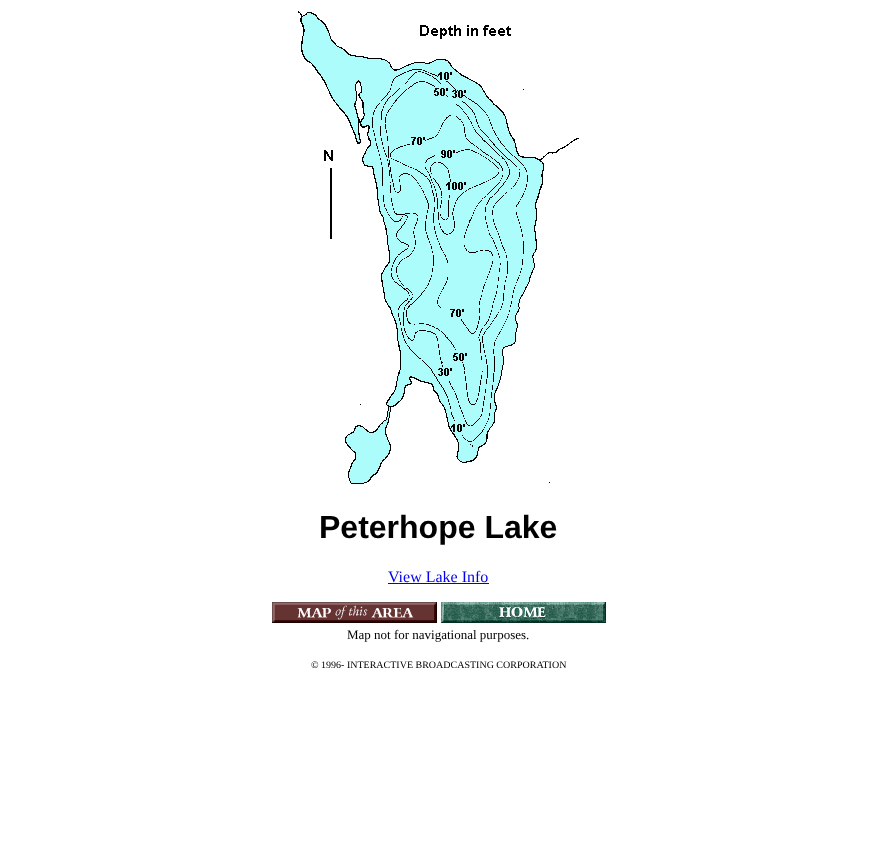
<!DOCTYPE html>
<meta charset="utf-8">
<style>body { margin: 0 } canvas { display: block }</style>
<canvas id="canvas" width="877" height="858"></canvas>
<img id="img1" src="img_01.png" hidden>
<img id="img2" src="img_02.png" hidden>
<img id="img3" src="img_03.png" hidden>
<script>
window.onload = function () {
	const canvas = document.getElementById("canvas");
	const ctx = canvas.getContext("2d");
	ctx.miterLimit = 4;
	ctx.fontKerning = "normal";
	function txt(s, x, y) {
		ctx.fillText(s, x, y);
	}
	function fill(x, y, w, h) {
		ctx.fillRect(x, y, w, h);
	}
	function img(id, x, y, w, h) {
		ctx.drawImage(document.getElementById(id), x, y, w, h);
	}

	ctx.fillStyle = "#FFFFFF";
	fill(0, 0, 877, 858);
	img("img1", 298, 11, 281, 473);
	ctx.fillStyle = "#0000EE";
	fill(388, 583, 101, 1);
	img("img2", 272, 602, 165, 21);
	img("img3", 441, 602, 165, 21);
	ctx.font = "bold 32px Liberation Sans";
	ctx.fillStyle = "#000000";
	txt("Peterhope Lake", 319, 538);
	ctx.font = "16px Liberation Serif";
	ctx.fillStyle = "#0000EE";
	txt("View Lake Info", 388, 582);
	ctx.font = "13px Liberation Serif";
	ctx.fillStyle = "#000000";
	txt("Map not for navigational purposes.", 347, 639);
	ctx.font = "10px Liberation Serif";
	txt("© 1996- INTERACTIVE BROADCASTING CORPORATION", 311, 668);
};
</script>
